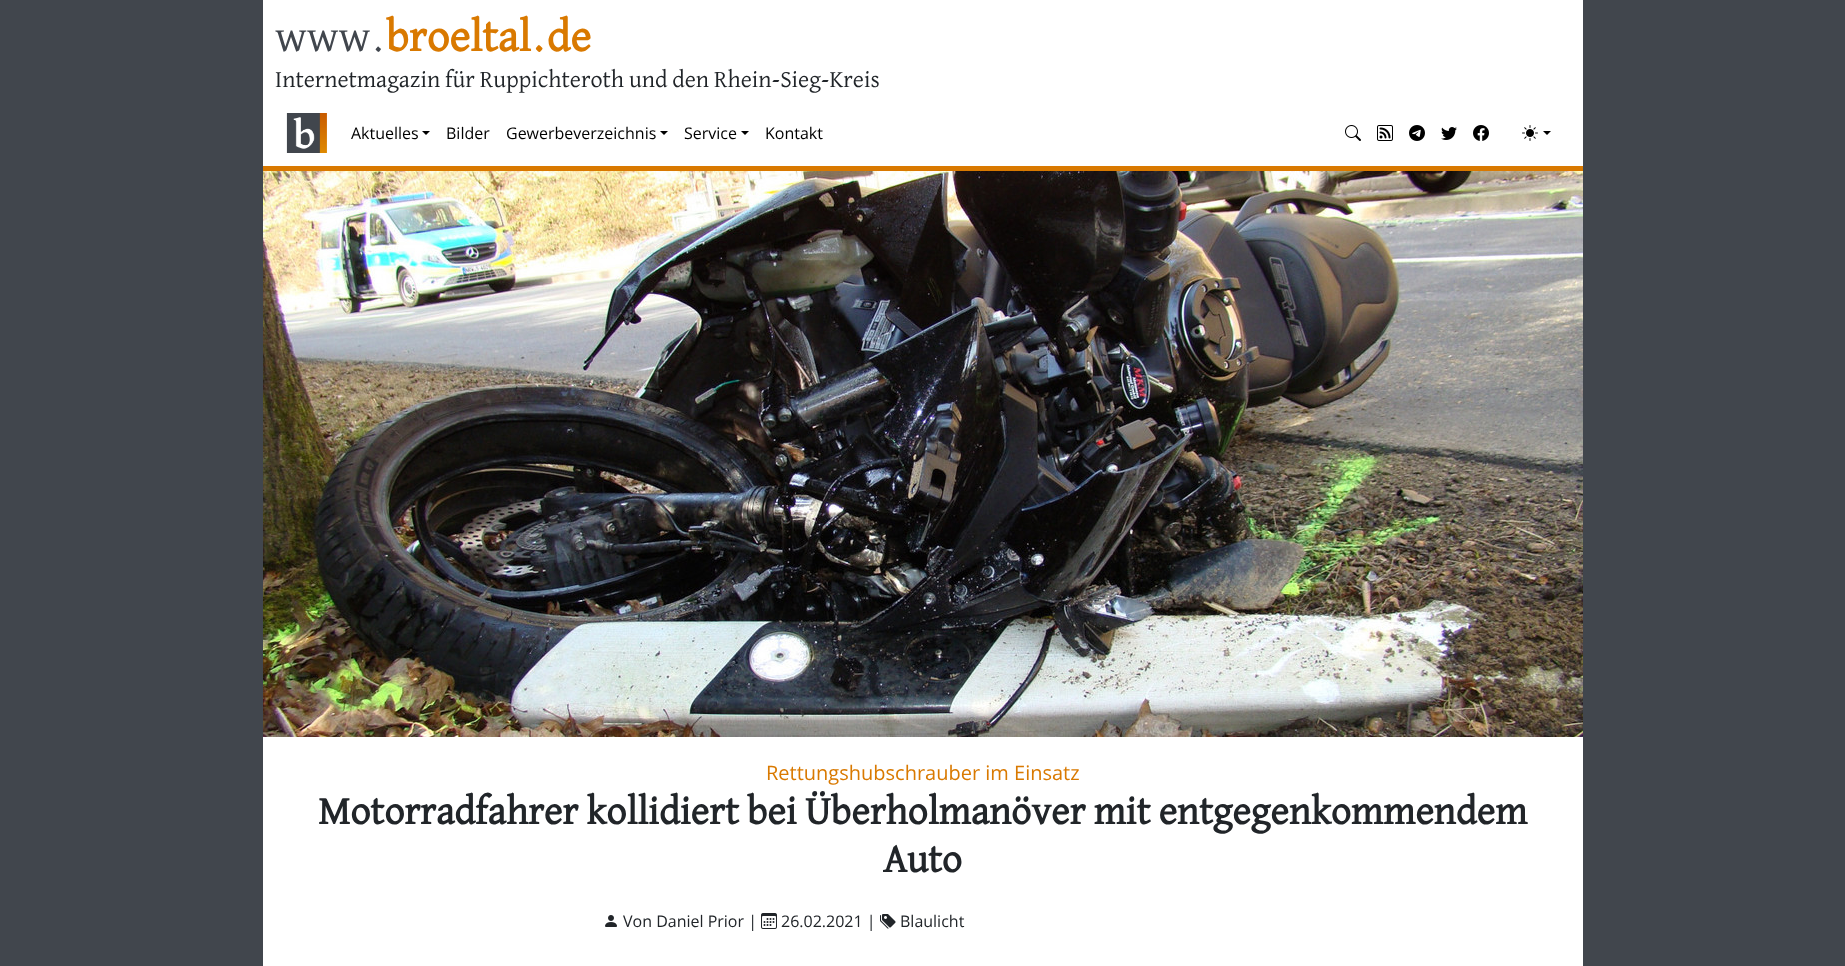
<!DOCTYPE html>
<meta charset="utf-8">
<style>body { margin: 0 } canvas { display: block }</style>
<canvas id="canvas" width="1845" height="966"></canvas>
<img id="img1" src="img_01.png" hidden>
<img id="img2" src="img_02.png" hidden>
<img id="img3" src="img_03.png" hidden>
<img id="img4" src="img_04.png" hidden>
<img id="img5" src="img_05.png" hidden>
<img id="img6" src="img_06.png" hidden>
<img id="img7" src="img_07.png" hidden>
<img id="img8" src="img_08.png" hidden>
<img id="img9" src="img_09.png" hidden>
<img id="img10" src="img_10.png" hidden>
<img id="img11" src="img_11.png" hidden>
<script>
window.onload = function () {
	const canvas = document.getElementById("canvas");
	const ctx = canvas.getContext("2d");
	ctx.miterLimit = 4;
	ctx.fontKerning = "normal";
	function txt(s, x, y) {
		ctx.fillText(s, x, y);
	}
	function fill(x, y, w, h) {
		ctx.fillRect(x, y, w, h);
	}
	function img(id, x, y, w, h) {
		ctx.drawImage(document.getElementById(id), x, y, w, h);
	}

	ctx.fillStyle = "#41464D";
	fill(0, 0, 1845, 966);
	ctx.fillStyle = "#FFFFFF";
	fill(263, 0, 1320, 166);
	ctx.fillStyle = "#D97900";
	fill(263, 166, 1320, 5);
	img("img1", 286, 113, 41, 40);
	ctx.fillStyle = "#000000";
	ctx.beginPath();
	ctx.moveTo(422, 131);
	ctx.lineTo(430, 131);
	ctx.lineTo(426, 135);
	ctx.closePath();
	ctx.fill();
	ctx.beginPath();
	ctx.moveTo(660, 131);
	ctx.lineTo(668, 131);
	ctx.lineTo(664, 135);
	ctx.closePath();
	ctx.fill();
	ctx.beginPath();
	ctx.moveTo(741, 131);
	ctx.lineTo(749, 131);
	ctx.lineTo(745, 135);
	ctx.closePath();
	ctx.fill();
	img("img2", 1345, 125, 16, 16);
	img("img3", 1377, 125, 16, 16);
	img("img4", 1409, 125, 16, 16);
	img("img5", 1441, 127, 16, 13);
	img("img6", 1473, 125, 16, 16);
	img("img7", 1522, 125, 16, 16);
	ctx.beginPath();
	ctx.moveTo(1543, 131);
	ctx.lineTo(1551, 131);
	ctx.lineTo(1547, 135);
	ctx.closePath();
	ctx.fill();
	ctx.fillStyle = "#FFFFFF";
	fill(263, 737, 1320, 229);
	img("img8", 263, 171, 1320, 566);
	img("img9", 605, 915, 12, 12);
	img("img10", 761, 913, 16, 16);
	img("img11", 880, 914, 16, 15);
	ctx.font = "45px David Libre";
	ctx.fillStyle = "#41464D";
	txt("www.", 275, 51);
	ctx.font = "bold 45px David Libre";
	ctx.fillStyle = "#D97900";
	txt("broeltal.de", 386, 51);
	ctx.font = "24px David Libre";
	ctx.fillStyle = "#212529";
	txt("Internetmagazin für Ruppichteroth und den Rhein-Sieg-Kreis", 275, 87);
	ctx.font = "16px Open Sans";
	ctx.fillStyle = "#000000";
	txt("Aktuelles", 351, 139);
	txt("Bilder", 446, 139);
	txt("Gewerbeverzeichnis", 506, 139);
	txt("Service", 684, 139);
	txt("Kontakt", 765, 139);
	ctx.font = "20px Open Sans";
	ctx.fillStyle = "#D97900";
	txt("Rettungshubschrauber im Einsatz", 766, 780);
	ctx.font = "bold 40px David Libre";
	ctx.fillStyle = "#212529";
	txt("Motorradfahrer kollidiert bei Überholmanöver mit entgegenkommendem", 318, 824);
	txt("Auto", 883, 872);
	ctx.font = "16px Open Sans";
	txt("Von Daniel Prior |", 623, 927);
	txt("26.02.2021 |", 781, 927);
	txt("Blaulicht", 900, 927);
};
</script>
